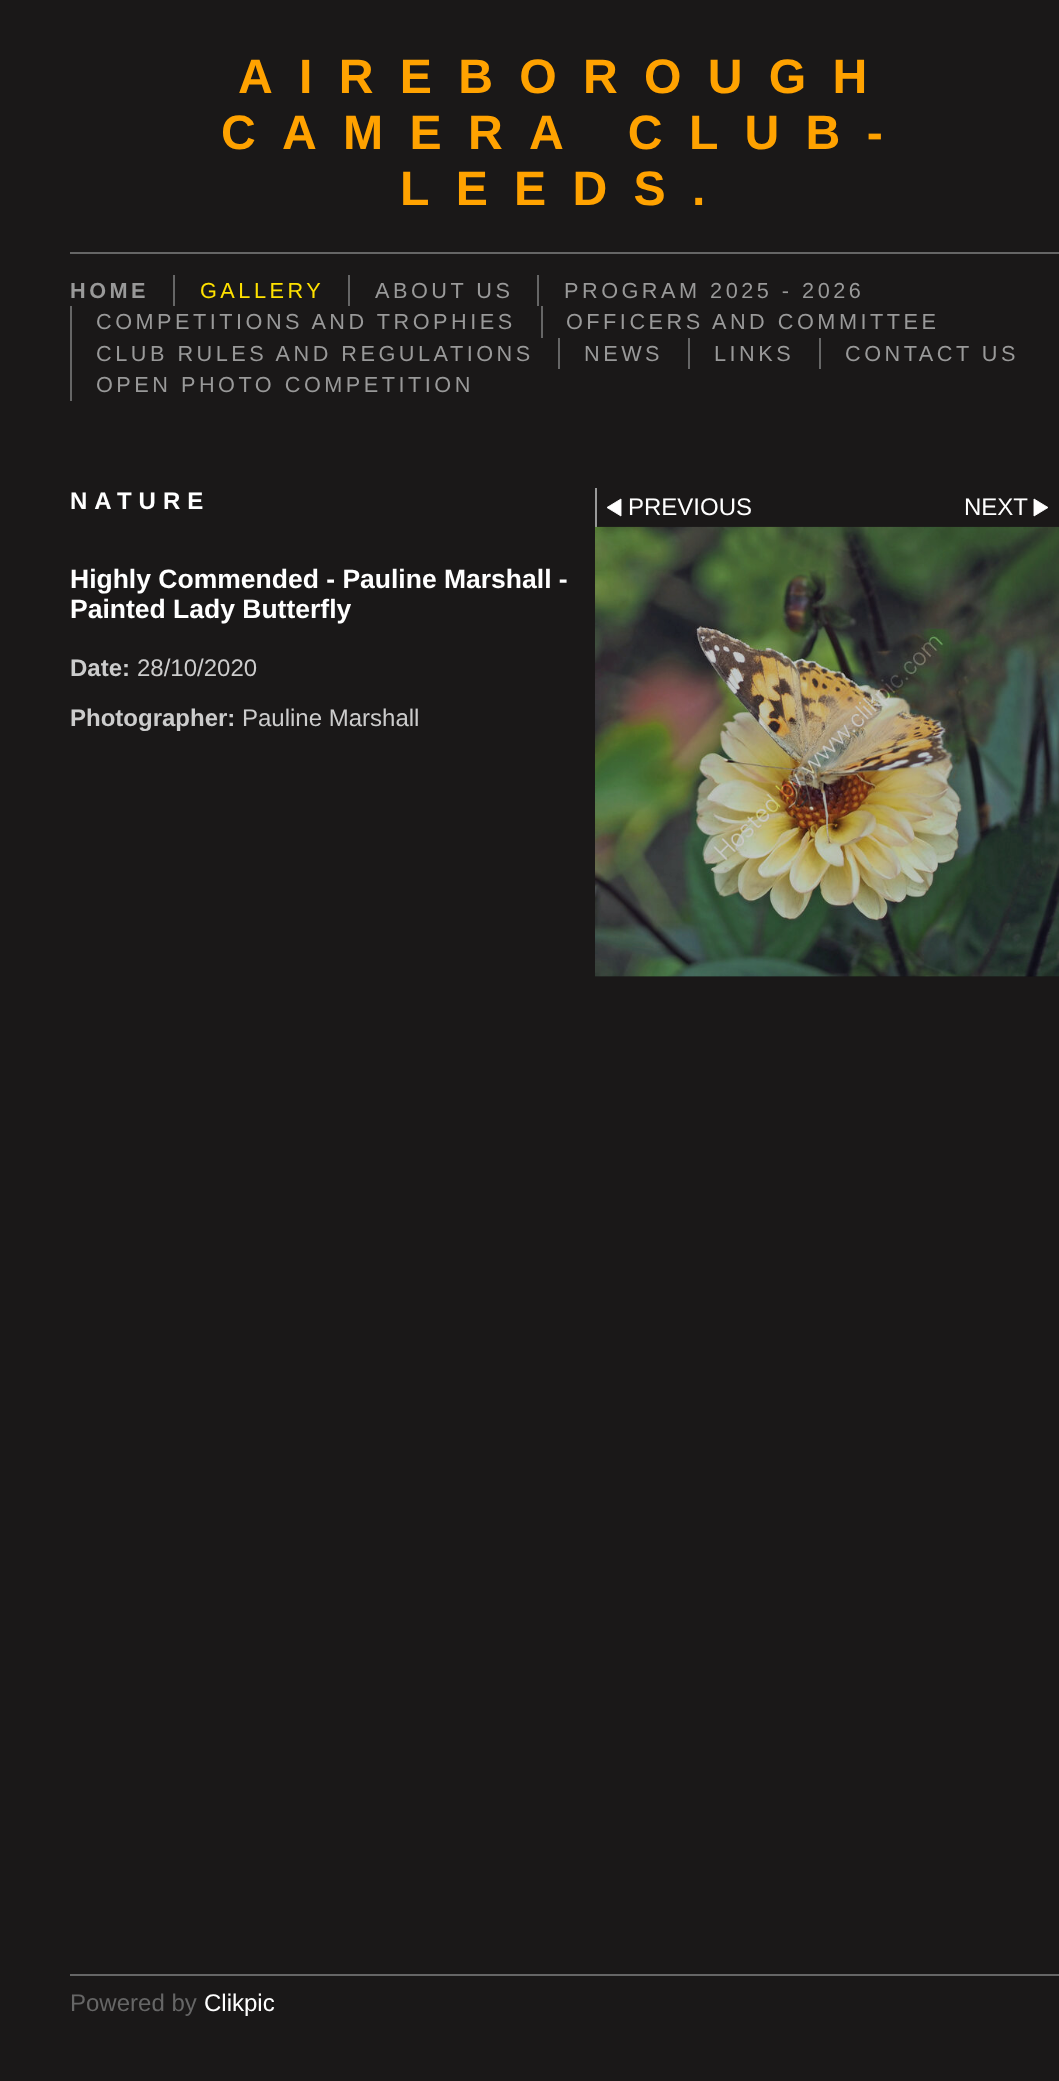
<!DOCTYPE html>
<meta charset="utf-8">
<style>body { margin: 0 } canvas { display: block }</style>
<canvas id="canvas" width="1059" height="2081"></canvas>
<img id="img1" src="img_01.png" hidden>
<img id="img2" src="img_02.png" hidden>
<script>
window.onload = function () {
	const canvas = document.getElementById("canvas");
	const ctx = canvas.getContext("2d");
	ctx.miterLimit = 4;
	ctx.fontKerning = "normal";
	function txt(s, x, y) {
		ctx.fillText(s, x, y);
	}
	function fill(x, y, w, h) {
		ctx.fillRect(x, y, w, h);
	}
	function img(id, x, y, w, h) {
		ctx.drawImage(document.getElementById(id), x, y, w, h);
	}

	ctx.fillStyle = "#1A1818";
	fill(0, 0, 1059, 2081);
	ctx.fillStyle = "#666666";
	fill(70, 252, 989, 2);
	fill(173, 275, 2, 31);
	fill(348, 275, 2, 31);
	fill(537, 275, 2, 31);
	fill(70, 306, 2, 95);
	fill(541, 306, 2, 32);
	fill(558, 338, 2, 31);
	fill(688, 338, 2, 31);
	fill(819, 338, 2, 31);
	ctx.fillStyle = "#999999";
	fill(595, 488, 2, 39);
	ctx.fillStyle = "#FFFFFF";
	ctx.beginPath();
	ctx.moveTo(621, 499);
	ctx.lineTo(621, 516);
	ctx.lineTo(607, 507.5);
	ctx.closePath();
	ctx.fill();
	ctx.strokeStyle = "#FFFFFF";
	ctx.lineWidth = 0.9;
	ctx.stroke();
	ctx.beginPath();
	ctx.moveTo(1034, 499);
	ctx.lineTo(1034, 516);
	ctx.lineTo(1048, 507.5);
	ctx.closePath();
	ctx.fill();
	ctx.stroke();
	img("img1", 595, 526, 464, 451);
	img("img2", 595, 527, 464, 450);
	ctx.fillStyle = "#666666";
	fill(70, 1974, 989, 2);
	ctx.letterSpacing = "26.25px";
	ctx.font = "bold 48.2px Liberation Sans";
	ctx.fillStyle = "#FFA200";
	txt("AIREBOROUGH", 238, 93);
	txt("CAMERA CLUB-", 221, 149);
	txt("LEEDS.", 400, 205);
	ctx.letterSpacing = "3.5px";
	ctx.font = "bold 21.7px Liberation Sans";
	ctx.fillStyle = "#999999";
	txt("HOME", 70, 298);
	ctx.font = "21.7px Liberation Sans";
	ctx.fillStyle = "#FFE100";
	txt("GALLERY", 200, 298);
	ctx.fillStyle = "#999999";
	txt("ABOUT US", 375, 298);
	txt("PROGRAM 2025 - 2026", 564, 298);
	txt("COMPETITIONS AND TROPHIES", 96, 329);
	txt("OFFICERS AND COMMITTEE", 566, 329);
	txt("CLUB RULES AND REGULATIONS", 96, 361);
	txt("NEWS", 584, 361);
	txt("LINKS", 714, 361);
	txt("CONTACT US", 845, 361);
	txt("OPEN PHOTO COMPETITION", 96, 392);
	ctx.letterSpacing = "7px";
	ctx.font = "bold 24px Liberation Sans";
	ctx.fillStyle = "#FFFFFF";
	txt("NATURE", 70, 509);
	ctx.letterSpacing = "0px";
	ctx.font = "bold 26.5px Liberation Sans";
	txt("Highly Commended - Pauline Marshall -", 70, 588);
	txt("Painted Lady Butterfly", 70, 618);
	ctx.font = "bold 24px Liberation Sans";
	ctx.fillStyle = "#CCCCCC";
	txt("Date:", 70, 676);
	ctx.font = "24px Liberation Sans";
	txt("28/10/2020", 137, 676);
	ctx.font = "bold 24px Liberation Sans";
	txt("Photographer:", 70, 726);
	ctx.font = "24px Liberation Sans";
	txt("Pauline Marshall", 242, 726);
	ctx.fillStyle = "#FFFFFF";
	txt("PREVIOUS", 628, 515);
	txt("NEXT", 964, 515);
	ctx.fillStyle = "#666666";
	txt("Powered by", 70, 2011);
	ctx.fillStyle = "#FFFFFF";
	txt("Clikpic", 204, 2011);
};
</script>
